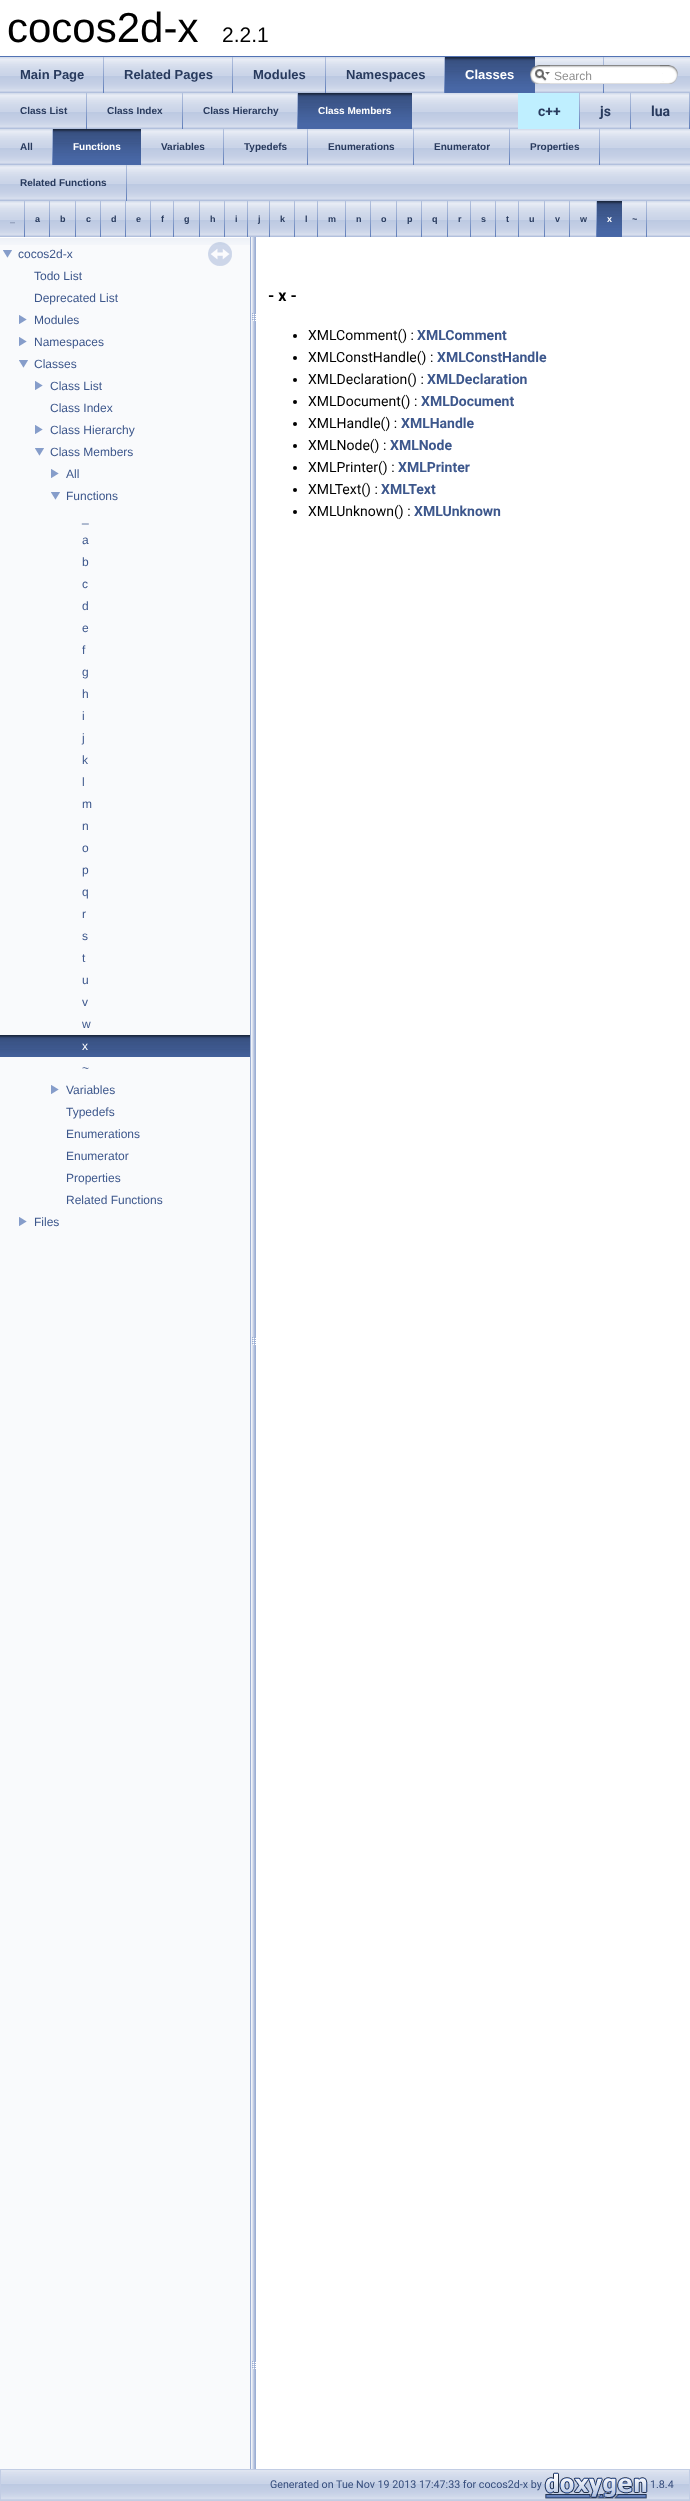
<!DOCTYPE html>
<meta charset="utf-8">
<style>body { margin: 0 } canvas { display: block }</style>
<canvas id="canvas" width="690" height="2501"></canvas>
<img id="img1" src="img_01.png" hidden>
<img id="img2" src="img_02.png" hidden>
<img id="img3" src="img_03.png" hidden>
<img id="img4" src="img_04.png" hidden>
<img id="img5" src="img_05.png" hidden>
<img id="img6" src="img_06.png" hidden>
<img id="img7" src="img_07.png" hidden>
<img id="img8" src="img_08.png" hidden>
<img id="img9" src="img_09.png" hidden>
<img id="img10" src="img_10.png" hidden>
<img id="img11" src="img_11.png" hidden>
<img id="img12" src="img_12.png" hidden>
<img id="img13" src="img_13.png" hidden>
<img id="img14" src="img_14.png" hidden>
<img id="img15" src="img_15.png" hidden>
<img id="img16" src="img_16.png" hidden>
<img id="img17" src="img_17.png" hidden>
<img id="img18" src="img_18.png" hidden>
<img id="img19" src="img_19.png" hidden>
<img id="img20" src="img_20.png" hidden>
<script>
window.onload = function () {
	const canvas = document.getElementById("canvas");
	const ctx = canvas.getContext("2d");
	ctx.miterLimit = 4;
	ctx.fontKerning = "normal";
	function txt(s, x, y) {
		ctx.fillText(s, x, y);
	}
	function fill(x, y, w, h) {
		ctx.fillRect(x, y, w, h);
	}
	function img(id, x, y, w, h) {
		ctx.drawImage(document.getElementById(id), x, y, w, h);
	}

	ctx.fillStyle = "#FFFFFF";
	fill(0, 0, 690, 2501);
	ctx.fillStyle = "#5373B4";
	fill(0, 56, 690, 1);
	img("img1", 0, 57, 690, 36);
	img("img2", 103, 57, 1, 36);
	img("img2", 232, 57, 1, 36);
	img("img2", 325, 57, 1, 36);
	img("img2", 444, 57, 1, 36);
	img("img3", 445, 57, 90, 36);
	img("img4", 530, 65, 20, 19);
	img("img5", 535, 69, 15, 12);
	img("img2", 603, 57, 1, 36);
	img("img6", 550, 65, 110, 19);
	img("img7", 660, 65, 18, 19);
	img("img8", 0, 93, 689, 36);
	img("img2", 86, 93, 1, 36);
	img("img2", 182, 93, 1, 36);
	img("img2", 297, 93, 1, 36);
	img("img9", 298, 93, 114, 36);
	ctx.fillStyle = "#BFEFFF";
	fill(518, 93, 61, 36);
	img("img2", 579, 93, 1, 36);
	img("img2", 630, 93, 1, 36);
	img("img2", 689, 93, 1, 36);
	img("img10", 0, 129, 690, 72);
	img("img2", 52, 129, 1, 36);
	img("img11", 53, 129, 88, 36);
	img("img2", 223, 129, 1, 36);
	img("img2", 307, 129, 1, 36);
	img("img2", 413, 129, 1, 36);
	img("img2", 509, 129, 1, 36);
	img("img2", 599, 129, 1, 36);
	img("img2", 126, 165, 1, 36);
	img("img1", 0, 201, 690, 36);
	img("img2", 49, 201, 1, 36);
	img("img2", 75, 201, 1, 36);
	img("img2", 100, 201, 1, 36);
	img("img2", 125, 201, 1, 36);
	img("img2", 150, 201, 1, 36);
	img("img2", 173, 201, 1, 36);
	img("img2", 199, 201, 1, 36);
	img("img2", 224, 201, 1, 36);
	img("img2", 247, 201, 1, 36);
	img("img2", 269, 201, 1, 36);
	img("img2", 294, 201, 1, 36);
	img("img2", 317, 201, 1, 36);
	img("img2", 345, 201, 1, 36);
	img("img2", 370, 201, 1, 36);
	img("img2", 396, 201, 1, 36);
	img("img2", 421, 201, 1, 36);
	img("img2", 447, 201, 1, 36);
	img("img2", 470, 201, 1, 36);
	img("img2", 495, 201, 1, 36);
	img("img2", 518, 201, 1, 36);
	img("img2", 544, 201, 1, 36);
	img("img2", 569, 201, 1, 36);
	img("img2", 596, 201, 1, 36);
	img("img12", 597, 201, 25, 36);
	img("img2", 646, 201, 1, 36);
	img("img2", 24, 201, 1, 36);
	ctx.fillStyle = "#F9FAFC";
	fill(0, 245, 250, 2224);
	img("img13", 0, 237, 250, 8);
	img("img14", 3, 250, 9, 8);
	img("img15", 19, 315, 8, 9);
	img("img15", 19, 337, 8, 9);
	img("img14", 19, 360, 9, 8);
	img("img15", 35, 381, 8, 9);
	img("img15", 35, 425, 8, 9);
	img("img14", 35, 448, 9, 8);
	img("img15", 51, 469, 8, 9);
	img("img14", 51, 492, 9, 8);
	img("img16", 0, 1035, 250, 22);
	img("img15", 51, 1085, 8, 9);
	img("img15", 19, 1217, 8, 9);
	img("img17", 208, 242, 24, 24);
	img("img18", 250, 237, 6, 2232);
	ctx.fillStyle = "#000000";
	ctx.beginPath();
	ctx.arc(295, 336, 2, 0, Math.PI * 2);
	ctx.fill();
	ctx.beginPath();
	ctx.arc(295, 358, 2, 0, Math.PI * 2);
	ctx.fill();
	ctx.beginPath();
	ctx.arc(295, 380, 2, 0, Math.PI * 2);
	ctx.fill();
	ctx.beginPath();
	ctx.arc(295, 402, 2, 0, Math.PI * 2);
	ctx.fill();
	ctx.beginPath();
	ctx.arc(295, 424, 2, 0, Math.PI * 2);
	ctx.fill();
	ctx.beginPath();
	ctx.arc(295, 446, 2, 0, Math.PI * 2);
	ctx.fill();
	ctx.beginPath();
	ctx.arc(295, 468, 2, 0, Math.PI * 2);
	ctx.fill();
	ctx.beginPath();
	ctx.arc(295, 490, 2, 0, Math.PI * 2);
	ctx.fill();
	ctx.beginPath();
	ctx.arc(295, 512, 2, 0, Math.PI * 2);
	ctx.fill();
	img("img19", 1, 2470, 688, 30);
	ctx.strokeStyle = "#C2CDE4";
	ctx.strokeRect(0.5, 2469.5, 689, 31);
	img("img20", 544, 2472, 104, 27);
	ctx.font = "42px Liberation Sans";
	txt("cocos2d-x", 7, 42);
	ctx.font = "21px Liberation Sans";
	txt("2.2.1", 222, 42);
	ctx.font = "bold 13px Liberation Sans";
	ctx.fillStyle = "#283A5D";
	txt("Main Page", 20, 79);
	txt("Related Pages", 124, 79);
	txt("Modules", 253, 79);
	txt("Namespaces", 346, 79);
	ctx.fillStyle = "#FFFFFF";
	txt("Classes", 465, 79);
	ctx.font = "12px Liberation Sans";
	ctx.fillStyle = "#909090";
	txt("Search", 554, 80);
	ctx.font = "bold 10px Liberation Sans";
	ctx.fillStyle = "#283A5D";
	txt("Class List", 20, 114);
	txt("Class Index", 107, 114);
	txt("Class Hierarchy", 203, 114);
	ctx.fillStyle = "#FFFFFF";
	txt("Class Members", 318, 114);
	ctx.font = "bold 14px Roboto";
	ctx.fillStyle = "#283A5D";
	txt("c++", 538, 116);
	txt("js", 600, 116);
	txt("lua", 651, 116);
	ctx.font = "bold 10px Liberation Sans";
	txt("All", 20, 150);
	ctx.fillStyle = "#FFFFFF";
	txt("Functions", 73, 150);
	ctx.fillStyle = "#283A5D";
	txt("Variables", 161, 150);
	txt("Typedefs", 244, 150);
	txt("Enumerations", 328, 150);
	txt("Enumerator", 434, 150);
	txt("Properties", 530, 150);
	txt("Related Functions", 20, 186);
	ctx.font = "bold 9px Liberation Sans";
	txt("a", 35, 222);
	txt("b", 60, 222);
	txt("c", 86, 222);
	txt("d", 111, 222);
	txt("e", 136, 222);
	txt("f", 161, 222);
	txt("g", 184, 222);
	txt("h", 210, 222);
	txt("i", 235, 222);
	txt("j", 258, 222);
	txt("k", 280, 222);
	txt("l", 305, 222);
	txt("m", 328, 222);
	txt("n", 356, 222);
	txt("o", 381, 222);
	txt("p", 407, 222);
	txt("q", 432, 222);
	txt("r", 458, 222);
	txt("s", 481, 222);
	txt("t", 506, 222);
	txt("u", 529, 222);
	txt("v", 555, 222);
	txt("w", 580, 222);
	ctx.fillStyle = "#FFFFFF";
	txt("x", 607, 222);
	ctx.fillStyle = "#283A5D";
	txt("~", 632, 222);
	txt("_", 10, 222);
	ctx.font = "12px Liberation Sans";
	ctx.fillStyle = "#3D578C";
	txt("cocos2d-x", 18, 258);
	txt("Todo List", 34, 280);
	txt("Deprecated List", 34, 302);
	txt("Modules", 34, 324);
	txt("Namespaces", 34, 346);
	txt("Classes", 34, 368);
	txt("Class List", 50, 390);
	txt("Class Index", 50, 412);
	txt("Class Hierarchy", 50, 434);
	txt("Class Members", 50, 456);
	txt("All", 66, 478);
	txt("Functions", 66, 500);
	txt("_", 82, 522);
	txt("a", 82, 544);
	txt("b", 82, 566);
	txt("c", 82, 588);
	txt("d", 82, 610);
	txt("e", 82, 632);
	txt("f", 82, 654);
	txt("g", 82, 676);
	txt("h", 82, 698);
	txt("i", 82, 720);
	txt("j", 82, 742);
	txt("k", 82, 764);
	txt("l", 82, 786);
	txt("m", 82, 808);
	txt("n", 82, 830);
	txt("o", 82, 852);
	txt("p", 82, 874);
	txt("q", 82, 896);
	txt("r", 82, 918);
	txt("s", 82, 940);
	txt("t", 82, 962);
	txt("u", 82, 984);
	txt("v", 82, 1006);
	txt("w", 82, 1028);
	ctx.fillStyle = "#FFFFFF";
	txt("x", 82, 1050);
	ctx.fillStyle = "#3D578C";
	txt("~", 82, 1072);
	txt("Variables", 66, 1094);
	txt("Typedefs", 66, 1116);
	txt("Enumerations", 66, 1138);
	txt("Enumerator", 66, 1160);
	txt("Properties", 66, 1182);
	txt("Related Functions", 66, 1204);
	txt("Files", 34, 1226);
	ctx.font = "bold 16px Roboto";
	ctx.fillStyle = "#000000";
	txt("- x -", 268, 301);
	ctx.font = "14px Roboto";
	txt("XMLComment() :", 308, 340);
	ctx.font = "bold 14px Roboto";
	ctx.fillStyle = "#3D578C";
	txt("XMLComment", 417, 340);
	ctx.font = "14px Roboto";
	ctx.fillStyle = "#000000";
	txt("XMLConstHandle() :", 308, 362);
	ctx.font = "bold 14px Roboto";
	ctx.fillStyle = "#3D578C";
	txt("XMLConstHandle", 437, 362);
	ctx.font = "14px Roboto";
	ctx.fillStyle = "#000000";
	txt("XMLDeclaration() :", 308, 384);
	ctx.font = "bold 14px Roboto";
	ctx.fillStyle = "#3D578C";
	txt("XMLDeclaration", 427, 384);
	ctx.font = "14px Roboto";
	ctx.fillStyle = "#000000";
	txt("XMLDocument() :", 308, 406);
	ctx.font = "bold 14px Roboto";
	ctx.fillStyle = "#3D578C";
	txt("XMLDocument", 421, 406);
	ctx.font = "14px Roboto";
	ctx.fillStyle = "#000000";
	txt("XMLHandle() :", 308, 428);
	ctx.font = "bold 14px Roboto";
	ctx.fillStyle = "#3D578C";
	txt("XMLHandle", 401, 428);
	ctx.font = "14px Roboto";
	ctx.fillStyle = "#000000";
	txt("XMLNode() :", 308, 450);
	ctx.font = "bold 14px Roboto";
	ctx.fillStyle = "#3D578C";
	txt("XMLNode", 390, 450);
	ctx.font = "14px Roboto";
	ctx.fillStyle = "#000000";
	txt("XMLPrinter() :", 308, 472);
	ctx.font = "bold 14px Roboto";
	ctx.fillStyle = "#3D578C";
	txt("XMLPrinter", 398, 472);
	ctx.font = "14px Roboto";
	ctx.fillStyle = "#000000";
	txt("XMLText() :", 308, 494);
	ctx.font = "bold 14px Roboto";
	ctx.fillStyle = "#3D578C";
	txt("XMLText", 381, 494);
	ctx.font = "14px Roboto";
	ctx.fillStyle = "#000000";
	txt("XMLUnknown() :", 308, 516);
	ctx.font = "bold 14px Roboto";
	ctx.fillStyle = "#3D578C";
	txt("XMLUnknown", 414, 516);
	ctx.font = "10.7px Roboto";
	ctx.fillStyle = "#364D7C";
	txt("Generated on Tue Nov 19 2013 17:47:33 for cocos2d-x by", 270, 2488);
	txt("1.8.4", 650, 2488);
};
</script>
